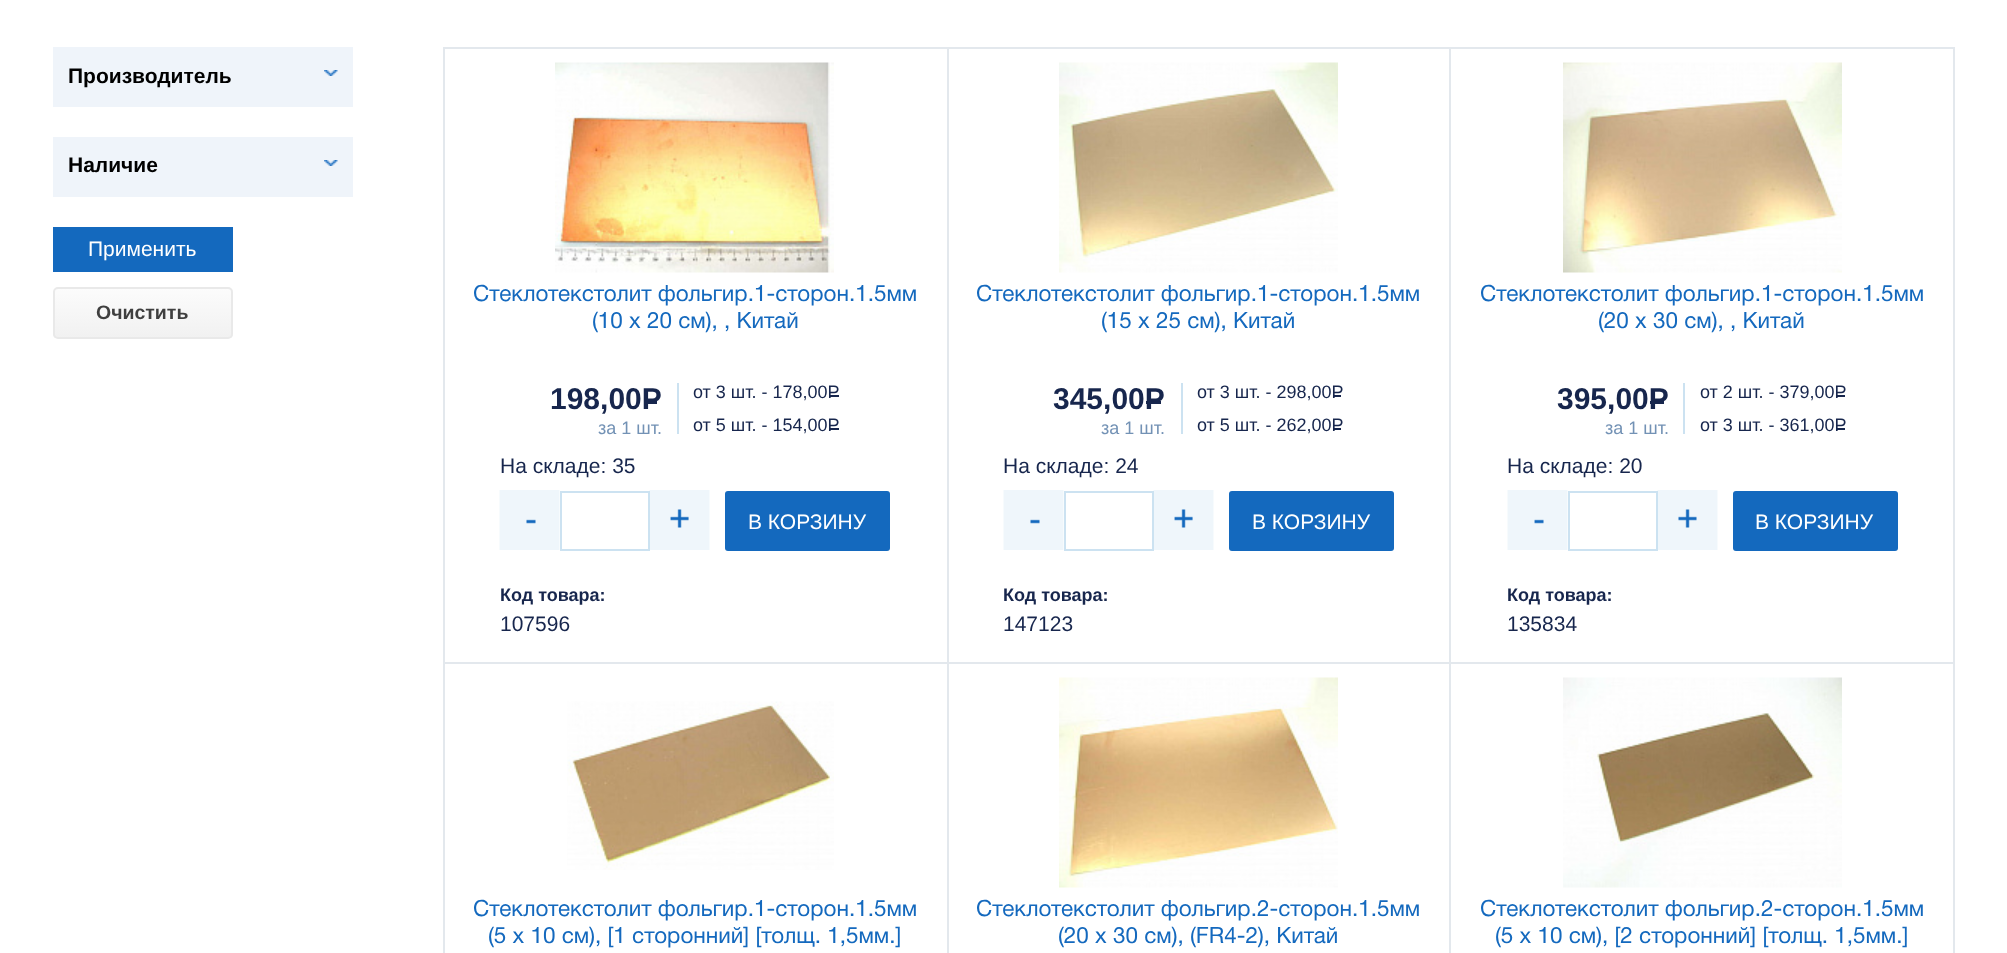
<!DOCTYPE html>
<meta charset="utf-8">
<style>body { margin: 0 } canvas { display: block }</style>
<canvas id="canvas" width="2007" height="953"></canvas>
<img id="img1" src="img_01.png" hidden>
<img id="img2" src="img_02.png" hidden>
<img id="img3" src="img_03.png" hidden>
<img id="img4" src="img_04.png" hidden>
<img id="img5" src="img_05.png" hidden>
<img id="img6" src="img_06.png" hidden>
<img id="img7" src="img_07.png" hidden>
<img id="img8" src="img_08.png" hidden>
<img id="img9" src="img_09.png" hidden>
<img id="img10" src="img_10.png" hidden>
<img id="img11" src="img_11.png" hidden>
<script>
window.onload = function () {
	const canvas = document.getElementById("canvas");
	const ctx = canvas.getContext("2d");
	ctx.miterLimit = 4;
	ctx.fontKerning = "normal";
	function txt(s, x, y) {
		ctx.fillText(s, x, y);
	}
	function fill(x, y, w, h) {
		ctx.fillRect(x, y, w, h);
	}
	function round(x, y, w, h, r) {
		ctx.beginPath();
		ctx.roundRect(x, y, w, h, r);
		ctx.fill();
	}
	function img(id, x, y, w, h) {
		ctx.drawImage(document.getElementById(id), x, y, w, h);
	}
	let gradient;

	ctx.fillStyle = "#FFFFFF";
	fill(0, 0, 2007, 953);
	ctx.fillStyle = "#EFF4FA";
	fill(53, 47, 300, 60);
	img("img1", 324, 70, 14, 6);
	fill(53, 137, 300, 60);
	img("img1", 324, 160, 14, 6);
	ctx.fillStyle = "#1469BE";
	fill(53, 227, 180, 45);
	ctx.save();
	ctx.beginPath();
	ctx.roundRect(53, 287, 180, 52, 5);
	ctx.clip();
	gradient = ctx.createLinearGradient(143, 288, 143, 338);
	gradient.addColorStop(0, "#FCFCFC");
	gradient.addColorStop(1, "#F1F1F1");
	ctx.fillStyle = gradient;
	fill(53, 288, 180, 50);
	ctx.restore();
	ctx.beginPath();
	ctx.roundRect(54, 288, 178, 50, 4);
	ctx.strokeStyle = "#E9E9E9";
	ctx.lineWidth = 2;
	ctx.stroke();
	ctx.fillStyle = "#E3E8ED";
	fill(443, 47, 2, 906);
	fill(444, 47, 504, 2);
	fill(947, 47, 2, 616);
	fill(444, 662, 504, 2);
	img("img2", 555, 62, 279, 211);
	ctx.fillStyle = "#17264D";
	fill(644, 401, 13, 3);
	ctx.fillStyle = "#CCE2F1";
	fill(677, 383, 2, 51);
	ctx.fillStyle = "#17264D";
	fill(830, 395, 9, 2);
	fill(830, 428, 9, 2);
	img("img3", 499, 490, 61, 60);
	ctx.strokeStyle = "#CCE2F1";
	ctx.strokeRect(561, 492, 88, 58);
	img("img4", 649, 490, 61, 60);
	ctx.fillStyle = "#1469BE";
	round(725, 491, 165, 60, 3);
	ctx.fillStyle = "#E3E8ED";
	fill(948, 47, 1007, 2);
	fill(1449, 47, 2, 616);
	fill(948, 662, 503, 2);
	img("img5", 1059, 62, 279, 211);
	ctx.fillStyle = "#17264D";
	fill(1146, 401, 15, 3);
	ctx.fillStyle = "#CCE2F1";
	fill(1181, 383, 2, 51);
	ctx.fillStyle = "#17264D";
	fill(1334, 395, 7, 2);
	fill(1334, 428, 7, 2);
	img("img3", 1003, 490, 61, 60);
	ctx.strokeRect(1065, 492, 88, 58);
	img("img4", 1153, 490, 61, 60);
	ctx.fillStyle = "#1469BE";
	round(1229, 491, 165, 60, 3);
	ctx.fillStyle = "#E3E8ED";
	fill(1953, 47, 2, 616);
	fill(1451, 662, 504, 2);
	img("img6", 1563, 62, 279, 211);
	ctx.fillStyle = "#17264D";
	fill(1650, 401, 14, 3);
	ctx.fillStyle = "#CCE2F1";
	fill(1683, 383, 2, 51);
	ctx.fillStyle = "#17264D";
	fill(1836, 395, 9, 2);
	fill(1836, 428, 9, 2);
	img("img7", 1507, 490, 61, 60);
	ctx.strokeRect(1569, 492, 88, 58);
	img("img8", 1657, 490, 61, 60);
	ctx.fillStyle = "#1469BE";
	round(1733, 491, 165, 60, 3);
	ctx.fillStyle = "#E3E8ED";
	fill(947, 663, 2, 290);
	img("img9", 567, 701, 267, 169);
	fill(1449, 663, 2, 290);
	img("img10", 1059, 677, 279, 211);
	fill(1953, 663, 2, 290);
	img("img11", 1563, 677, 279, 211);
	ctx.font = "bold 21px Liberation Sans";
	ctx.fillStyle = "#000000";
	txt("Производитель", 68, 83);
	txt("Наличие", 68, 172);
	ctx.font = "21px Liberation Sans";
	ctx.fillStyle = "#FFFFFF";
	txt("Применить", 88, 256);
	ctx.font = "bold 19.5px Liberation Sans";
	ctx.fillStyle = "#3F3F3F";
	txt("Очистить", 96, 319);
	ctx.font = "22.5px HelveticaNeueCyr";
	ctx.fillStyle = "#1469BE";
	txt("Стеклотекстолит фольгир.1-сторон.1.5мм", 473, 301);
	txt("(10 х 20 см), , Китай", 592, 328);
	ctx.font = "bold 30px Liberation Sans";
	ctx.fillStyle = "#17264D";
	txt("198,00Р", 550, 409);
	ctx.font = "18px Liberation Sans";
	ctx.fillStyle = "#7392B5";
	txt("за 1 шт.", 598, 434);
	ctx.fillStyle = "#17264D";
	txt("от 3 шт. - 178,00Р", 693, 398);
	txt("от 5 шт. - 154,00Р", 693, 431);
	ctx.font = "21px Liberation Sans";
	txt("На складе: 35", 500, 473);
	ctx.fillStyle = "#FFFFFF";
	txt("В КОРЗИНУ", 748, 529);
	ctx.font = "bold 18px Liberation Sans";
	ctx.fillStyle = "#17264D";
	txt("Код товара:", 500, 601);
	ctx.font = "21px Liberation Sans";
	txt("107596", 500, 631);
	ctx.font = "22.5px HelveticaNeueCyr";
	ctx.fillStyle = "#1469BE";
	txt("Стеклотекстолит фольгир.1-сторон.1.5мм", 976, 301);
	txt("(15 х 25 см), Китай", 1101, 328);
	ctx.font = "bold 30px Liberation Sans";
	ctx.fillStyle = "#17264D";
	txt("345,00Р", 1053, 409);
	ctx.font = "18px Liberation Sans";
	ctx.fillStyle = "#7392B5";
	txt("за 1 шт.", 1101, 434);
	ctx.fillStyle = "#17264D";
	txt("от 3 шт. - 298,00Р", 1197, 398);
	txt("от 5 шт. - 262,00Р", 1197, 431);
	ctx.font = "21px Liberation Sans";
	txt("На складе: 24", 1003, 473);
	ctx.fillStyle = "#FFFFFF";
	txt("В КОРЗИНУ", 1252, 529);
	ctx.font = "bold 18px Liberation Sans";
	ctx.fillStyle = "#17264D";
	txt("Код товара:", 1003, 601);
	ctx.font = "21px Liberation Sans";
	txt("147123", 1003, 631);
	ctx.font = "22.5px HelveticaNeueCyr";
	ctx.fillStyle = "#1469BE";
	txt("Стеклотекстолит фольгир.1-сторон.1.5мм", 1480, 301);
	txt("(20 х 30 см), , Китай", 1598, 328);
	ctx.font = "bold 30px Liberation Sans";
	ctx.fillStyle = "#17264D";
	txt("395,00Р", 1557, 409);
	ctx.font = "18px Liberation Sans";
	ctx.fillStyle = "#7392B5";
	txt("за 1 шт.", 1605, 434);
	ctx.fillStyle = "#17264D";
	txt("от 2 шт. - 379,00Р", 1700, 398);
	txt("от 3 шт. - 361,00Р", 1700, 431);
	ctx.font = "21px Liberation Sans";
	txt("На складе: 20", 1507, 473);
	ctx.fillStyle = "#FFFFFF";
	txt("В КОРЗИНУ", 1755, 529);
	ctx.font = "bold 18px Liberation Sans";
	ctx.fillStyle = "#17264D";
	txt("Код товара:", 1507, 601);
	ctx.font = "21px Liberation Sans";
	txt("135834", 1507, 631);
	ctx.font = "22.5px HelveticaNeueCyr";
	ctx.fillStyle = "#1469BE";
	txt("Стеклотекстолит фольгир.1-сторон.1.5мм", 473, 916);
	txt("(5 х 10 см), [1 сторонний] [толщ. 1,5мм.]", 488, 943);
	txt("Стеклотекстолит фольгир.2-сторон.1.5мм", 976, 916);
	txt("(20 х 30 см), (FR4-2), Китай", 1058, 943);
	txt("Стеклотекстолит фольгир.2-сторон.1.5мм", 1480, 916);
	txt("(5 х 10 см), [2 сторонний] [толщ. 1,5мм.]", 1495, 943);
};
</script>
